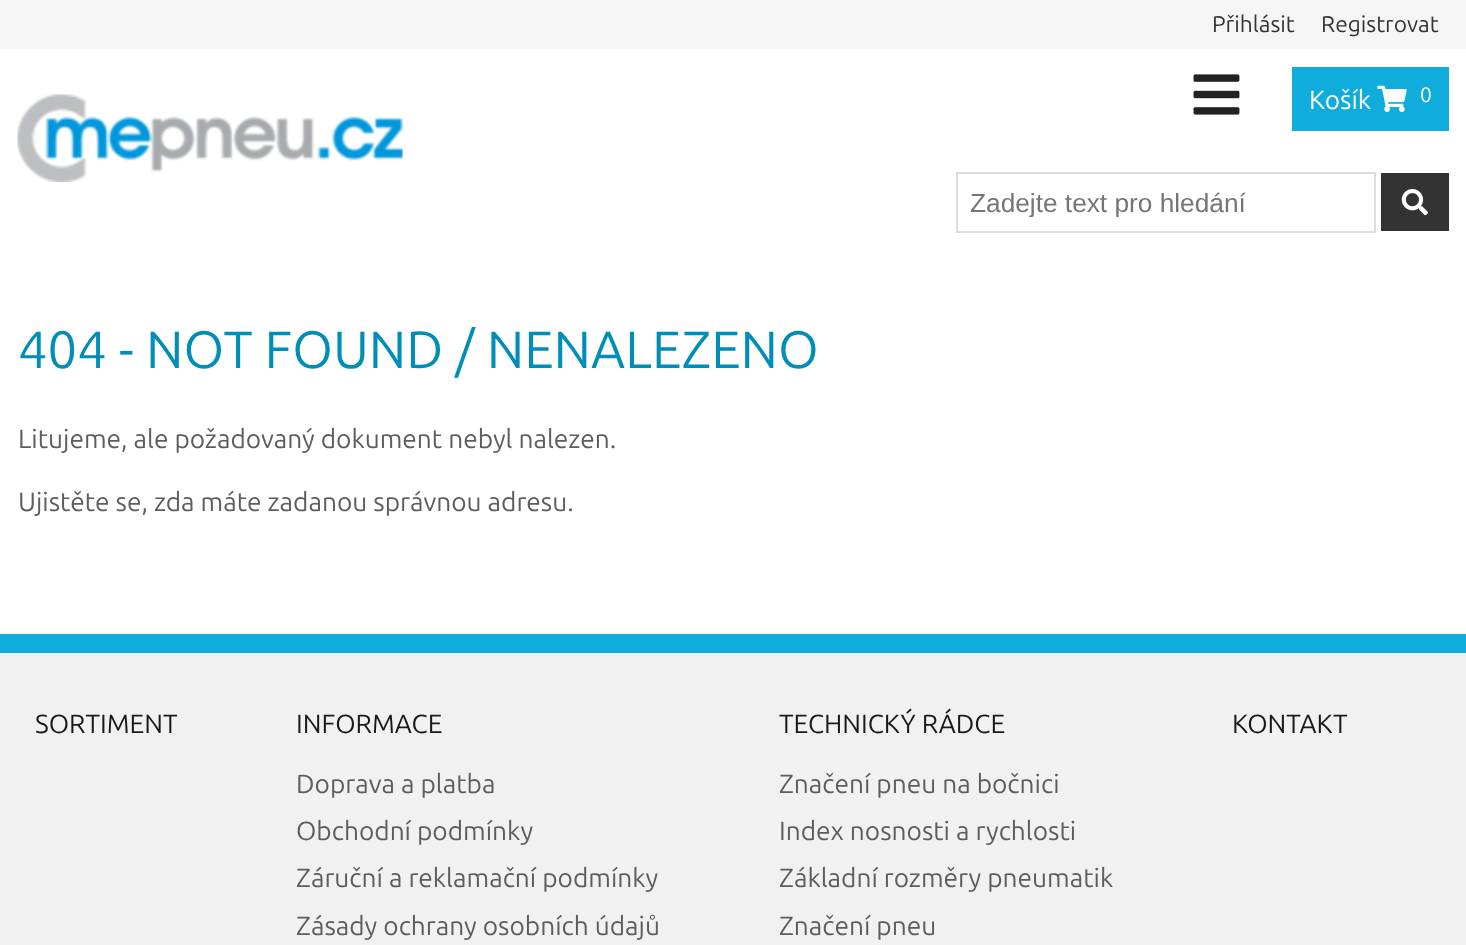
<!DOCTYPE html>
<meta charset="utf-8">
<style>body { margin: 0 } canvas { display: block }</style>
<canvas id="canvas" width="1466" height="945"></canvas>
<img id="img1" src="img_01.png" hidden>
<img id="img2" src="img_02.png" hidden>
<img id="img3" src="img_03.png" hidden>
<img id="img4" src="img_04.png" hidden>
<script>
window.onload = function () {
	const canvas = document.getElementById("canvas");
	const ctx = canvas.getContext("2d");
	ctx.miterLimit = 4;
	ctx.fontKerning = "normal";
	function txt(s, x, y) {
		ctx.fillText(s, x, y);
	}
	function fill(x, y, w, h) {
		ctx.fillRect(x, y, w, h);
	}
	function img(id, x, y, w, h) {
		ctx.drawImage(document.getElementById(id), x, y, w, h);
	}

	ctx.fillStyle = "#FFFFFF";
	fill(0, 0, 1466, 945);
	ctx.fillStyle = "#F5F5F5";
	fill(0, 0, 1466, 49);
	img("img1", 17, 94, 386, 88);
	img("img2", 1193, 74, 47, 41);
	ctx.fillStyle = "#10ACDC";
	fill(1292, 67, 157, 64);
	img("img3", 1377, 85, 30, 27);
	ctx.strokeStyle = "#DDDDDD";
	ctx.lineWidth = 2;
	ctx.strokeRect(957, 173, 418, 59);
	ctx.fillStyle = "#333333";
	fill(1381, 173, 68, 58);
	img("img4", 1401, 189, 27, 27);
	ctx.fillStyle = "#F1F1F1";
	fill(0, 653, 1466, 292);
	ctx.fillStyle = "#10ACDC";
	fill(0, 634, 1466, 19);
	ctx.font = "22.75px Ubuntu";
	ctx.fillStyle = "#333333";
	txt("Přihlásit", 1212, 32);
	txt("Registrovat", 1321, 32);
	ctx.font = "26.25px Ubuntu";
	ctx.fillStyle = "#FFFFFF";
	txt("Košík", 1309, 109);
	ctx.font = "21px Ubuntu";
	txt("0", 1420, 102);
	ctx.save();
	ctx.beginPath();
	ctx.rect(971, 187, 389, 30);
	ctx.clip();
	ctx.font = "26.25px Liberation Sans";
	ctx.fillStyle = "#757575";
	txt("Zadejte text pro hledání", 970, 212);
	ctx.restore();
	ctx.font = "52.5px Ubuntu";
	ctx.fillStyle = "#008DB8";
	txt("404 - NOT FOUND / NENALEZENO", 18, 368);
	ctx.font = "26.25px Ubuntu";
	ctx.fillStyle = "#5D5D5D";
	txt("Litujeme, ale požadovaný dokument nebyl nalezen.", 18, 448);
	txt("Ujistěte se, zda máte zadanou správnou adresu.", 18, 511);
	ctx.fillStyle = "#191919";
	txt("SORTIMENT", 35, 733);
	txt("INFORMACE", 296, 733);
	ctx.fillStyle = "#5D5D5D";
	txt("Doprava a platba", 296, 793);
	txt("Obchodní podmínky", 296, 840);
	txt("Záruční a reklamační podmínky", 296, 887);
	txt("Zásady ochrany osobních údajů", 296, 935);
	ctx.fillStyle = "#191919";
	txt("TECHNICKÝ RÁDCE", 779, 733);
	ctx.fillStyle = "#5D5D5D";
	txt("Značení pneu na bočnici", 779, 793);
	txt("Index nosnosti a rychlosti", 779, 840);
	txt("Základní rozměry pneumatik", 779, 887);
	txt("Značení pneu", 779, 935);
	ctx.fillStyle = "#191919";
	txt("KONTAKT", 1232, 733);
};
</script>
